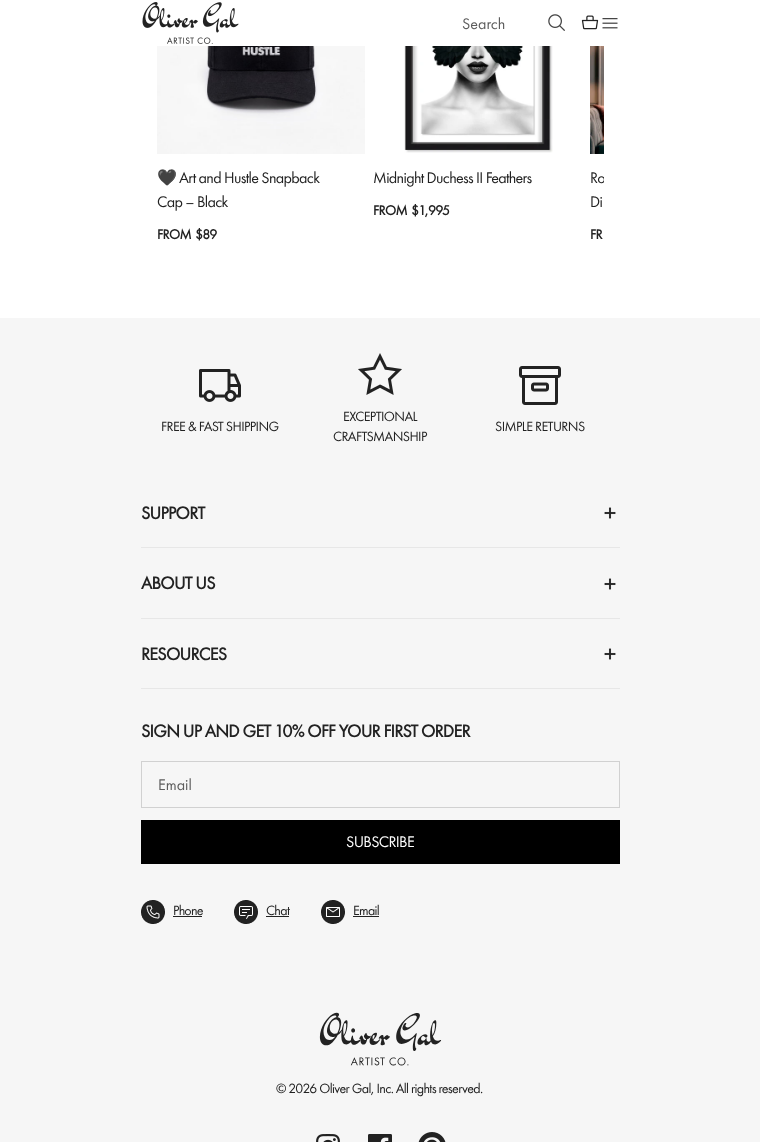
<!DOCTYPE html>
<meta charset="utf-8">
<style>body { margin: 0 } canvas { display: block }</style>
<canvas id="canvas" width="760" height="1142"></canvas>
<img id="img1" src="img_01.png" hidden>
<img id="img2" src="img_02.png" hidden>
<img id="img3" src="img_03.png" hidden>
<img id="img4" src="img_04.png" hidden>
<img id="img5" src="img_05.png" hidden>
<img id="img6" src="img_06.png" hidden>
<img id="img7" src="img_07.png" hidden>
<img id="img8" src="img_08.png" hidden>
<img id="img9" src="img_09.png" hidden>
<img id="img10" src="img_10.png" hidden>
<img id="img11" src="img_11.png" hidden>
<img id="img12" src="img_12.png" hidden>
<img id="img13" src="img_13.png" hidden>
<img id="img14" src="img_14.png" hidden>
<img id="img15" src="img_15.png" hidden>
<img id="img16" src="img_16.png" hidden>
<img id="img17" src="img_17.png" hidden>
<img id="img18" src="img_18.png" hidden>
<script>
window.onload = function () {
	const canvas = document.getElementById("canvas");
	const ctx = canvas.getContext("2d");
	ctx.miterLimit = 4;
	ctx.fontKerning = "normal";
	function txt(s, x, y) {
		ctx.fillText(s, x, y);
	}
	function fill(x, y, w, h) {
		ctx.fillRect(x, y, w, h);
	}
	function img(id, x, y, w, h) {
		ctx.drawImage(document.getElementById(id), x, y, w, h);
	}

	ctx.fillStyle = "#FFFFFF";
	fill(0, 0, 760, 1142);
	img("img1", 142, 2, 97, 42);
	img("img2", 548, 14, 17, 17);
	img("img3", 581, 15, 18, 15);
	img("img4", 602, 18, 16, 11);
	img("img5", 157, 46, 208, 108);
	img("img6", 404, 46, 149, 107);
	img("img7", 590, 46, 14, 108);
	ctx.fillStyle = "#F6F6F6";
	fill(0, 318, 760, 824);
	img("img8", 199, 369, 42, 33);
	img("img9", 358, 353, 44, 42);
	img("img10", 519, 366, 42, 39);
	ctx.fillStyle = "#E7E7E7";
	fill(141, 547, 479, 1);
	img("img11", 604, 507, 12, 12);
	fill(141, 618, 479, 1);
	img("img11", 604, 578, 12, 12);
	fill(141, 688, 479, 1);
	img("img11", 604, 648, 12, 12);
	ctx.strokeStyle = "#D1D1D1";
	ctx.strokeRect(141.5, 761.5, 478, 46);
	ctx.fillStyle = "#000000";
	fill(141, 820, 479, 44);
	img("img12", 141, 900, 24, 24);
	ctx.fillStyle = "#222222";
	fill(173, 916, 29, 1);
	img("img13", 234, 900, 24, 24);
	fill(266, 916, 23, 1);
	img("img14", 321, 900, 24, 24);
	fill(353, 916, 26, 1);
	img("img15", 319, 1012, 123, 54);
	img("img16", 316, 1134, 24, 8);
	img("img17", 368, 1134, 24, 8);
	img("img18", 418, 1132, 28, 10);
	ctx.font = "16px Futura PT";
	ctx.fillStyle = "#5D5D5D";
	txt("Search", 462, 29);
	ctx.save();
	ctx.beginPath();
	ctx.rect(157, 0, 447, 278);
	ctx.clip();
	ctx.letterSpacing = "-0.65px";
	ctx.font = "16px Noto Color Emoji";
	ctx.fillStyle = "#222222";
	txt("🖤", 157, 183);
	ctx.restore();
	ctx.letterSpacing = "-0.65px";
	ctx.fillStyle = "#222222";
	txt("Art and Hustle Snapback", 179, 183);
	txt("Cap – Black", 157, 207);
	ctx.letterSpacing = "-0.6px";
	ctx.font = "bold 14px Futura PT";
	txt("FROM", 157, 239);
	txt("$89", 195, 239);
	ctx.letterSpacing = "-0.65px";
	ctx.font = "16px Futura PT";
	txt("Midnight Duchess II Feathers", 373, 183);
	ctx.letterSpacing = "-0.6px";
	ctx.font = "bold 14px Futura PT";
	txt("FROM", 373, 215);
	txt("$1,995", 411, 215);
	ctx.save();
	ctx.beginPath();
	ctx.rect(157, 0, 447, 278);
	ctx.clip();
	ctx.letterSpacing = "-0.65px";
	ctx.font = "16px Futura PT";
	txt("Ro", 590, 183);
	ctx.restore();
	ctx.letterSpacing = "-0.65px";
	ctx.font = "16px Futura PT";
	txt("Di", 590, 207);
	ctx.letterSpacing = "-0.6px";
	ctx.font = "bold 14px Futura PT";
	txt("FR", 590, 239);
	ctx.font = "14px Futura PT";
	txt("FREE & FAST SHIPPING", 161, 431);
	txt("EXCEPTIONAL", 343, 421);
	txt("CRAFTSMANSHIP", 333, 441);
	txt("SIMPLE RETURNS", 495, 431);
	ctx.letterSpacing = "-0.7px";
	ctx.font = "bold 18px Futura PT";
	txt("SUPPORT", 141, 519);
	txt("ABOUT US", 141, 589);
	txt("RESOURCES", 141, 660);
	txt("SIGN UP AND GET 10% OFF YOUR FIRST ORDER", 141, 737);
	ctx.letterSpacing = "0px";
	ctx.font = "16px Futura PT";
	ctx.fillStyle = "#5D5D5D";
	txt("Email", 158, 790);
	ctx.letterSpacing = "-0.65px";
	ctx.fillStyle = "#FFFFFF";
	txt("SUBSCRIBE", 346, 847);
	ctx.letterSpacing = "-0.7px";
	ctx.font = "14px Futura PT";
	ctx.fillStyle = "#222222";
	txt("Phone", 173, 915);
	txt("Chat", 266, 915);
	txt("Email", 353, 915);
	ctx.letterSpacing = "-0.65px";
	txt("© 2026 Oliver Gal, Inc. All rights reserved.", 276, 1093);
};
</script>
